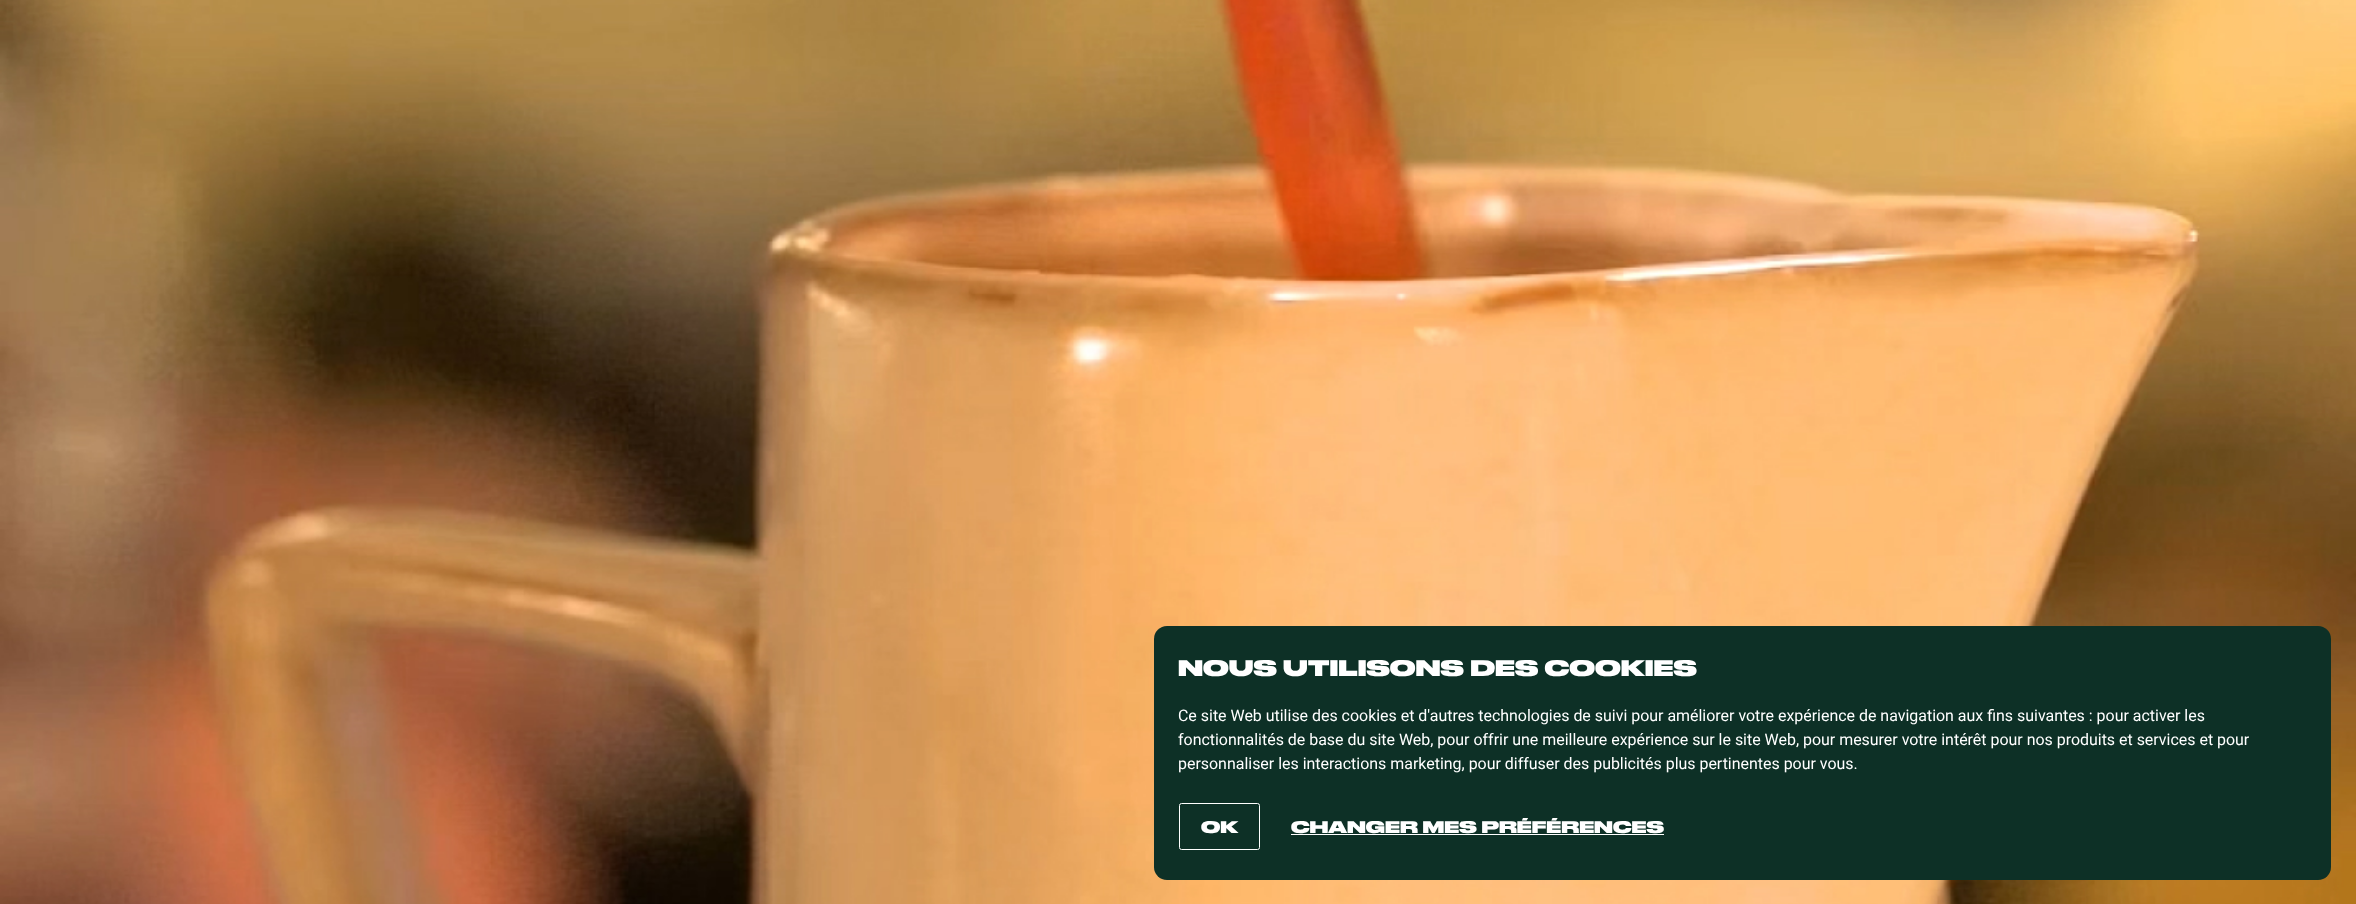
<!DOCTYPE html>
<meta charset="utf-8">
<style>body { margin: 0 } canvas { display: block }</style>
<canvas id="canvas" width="2356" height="904"></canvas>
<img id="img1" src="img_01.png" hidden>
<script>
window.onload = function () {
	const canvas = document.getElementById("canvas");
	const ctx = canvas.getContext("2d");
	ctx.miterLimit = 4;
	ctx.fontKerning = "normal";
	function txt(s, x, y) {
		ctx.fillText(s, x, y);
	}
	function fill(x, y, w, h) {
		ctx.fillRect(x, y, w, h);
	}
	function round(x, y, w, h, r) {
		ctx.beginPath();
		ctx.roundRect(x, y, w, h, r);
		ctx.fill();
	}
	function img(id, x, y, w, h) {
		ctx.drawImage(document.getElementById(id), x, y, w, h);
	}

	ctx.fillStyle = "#FFFFFF";
	fill(0, 0, 2356, 904);
	img("img1", 0, 0, 2356, 904);
	ctx.fillStyle = "#0D3026";
	round(1154, 626, 1177, 254, 13);
	ctx.beginPath();
	ctx.roundRect(1179.5, 803.5, 80, 46, 2);
	ctx.strokeStyle = "#FFFFFF";
	ctx.stroke();
	ctx.fillStyle = "#FFFFFF";
	fill(1291, 834, 373, 1);
	ctx.font = "900 21.25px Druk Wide";
	txt("NOUS UTILISONS DES COOKIES", 1178, 676);
	ctx.font = "15.95px Roboto";
	txt("Ce site Web utilise des cookies et d'autres technologies de suivi pour améliorer votre expérience de navigation aux fins suivantes : pour activer les", 1178, 721);
	txt("fonctionnalités de base du site Web, pour offrir une meilleure expérience sur le site Web, pour mesurer votre intérêt pour nos produits et services et pour", 1178, 745);
	txt("personnaliser les interactions marketing, pour diffuser des publicités plus pertinentes pour vous.", 1178, 769);
	ctx.font = "900 15.95px Druk Wide";
	txt("OK", 1201, 833);
	txt("CHANGER MES PRÉFÉRENCES", 1291, 833);
};
</script>
